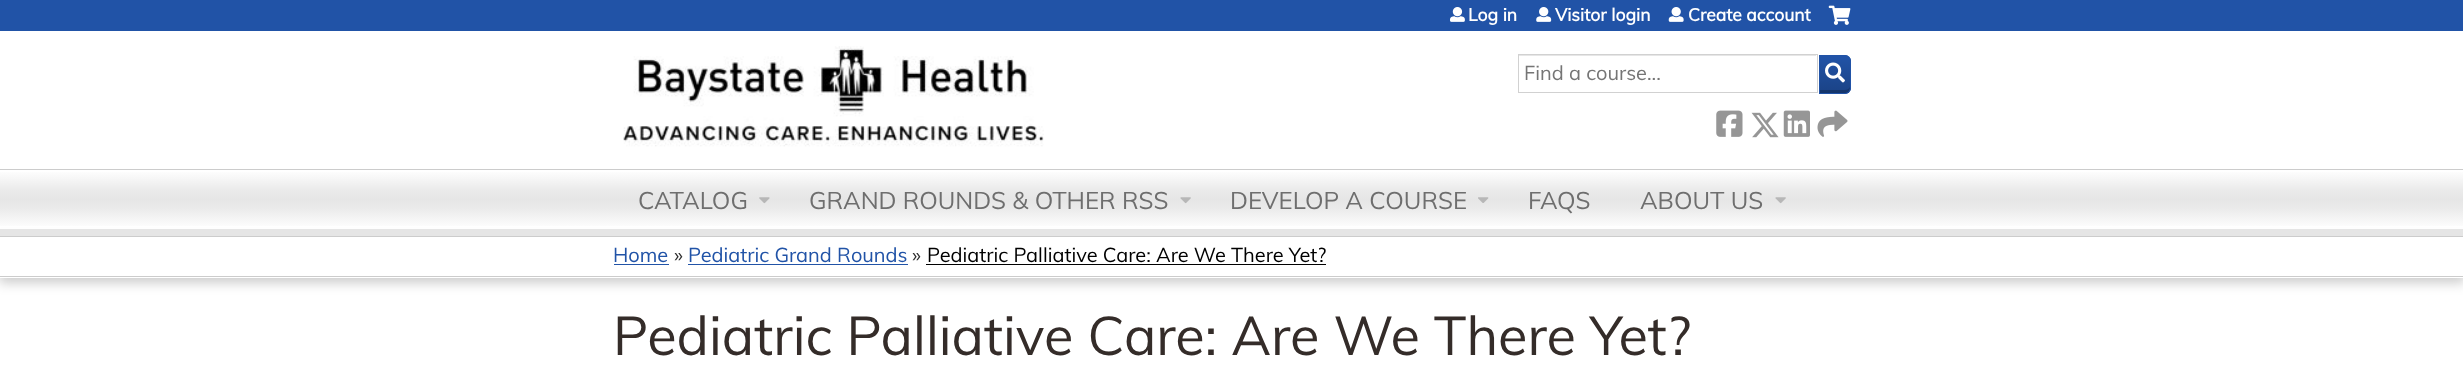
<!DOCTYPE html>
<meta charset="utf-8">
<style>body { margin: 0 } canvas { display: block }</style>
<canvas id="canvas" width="2463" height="381"></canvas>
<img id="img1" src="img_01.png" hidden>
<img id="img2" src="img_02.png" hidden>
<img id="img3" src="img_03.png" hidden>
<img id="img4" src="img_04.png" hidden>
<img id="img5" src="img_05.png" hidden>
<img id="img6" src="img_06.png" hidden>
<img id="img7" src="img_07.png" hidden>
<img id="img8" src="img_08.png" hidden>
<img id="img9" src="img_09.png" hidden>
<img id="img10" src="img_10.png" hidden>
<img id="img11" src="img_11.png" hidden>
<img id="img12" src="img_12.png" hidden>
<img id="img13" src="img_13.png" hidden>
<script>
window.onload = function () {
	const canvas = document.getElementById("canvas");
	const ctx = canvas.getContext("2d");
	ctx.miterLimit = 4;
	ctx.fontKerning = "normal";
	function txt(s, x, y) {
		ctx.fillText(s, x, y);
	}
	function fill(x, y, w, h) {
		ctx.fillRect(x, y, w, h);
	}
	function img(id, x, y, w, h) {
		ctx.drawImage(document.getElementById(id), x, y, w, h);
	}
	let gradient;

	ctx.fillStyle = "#FFFFFF";
	fill(0, 0, 2463, 381);
	ctx.fillStyle = "#2153A7";
	fill(0, 0, 2463, 31);
	img("img1", 623, 46, 421, 101);
	img("img2", 1450, 7, 15, 15);
	img("img3", 1536, 7, 16, 15);
	img("img4", 1668, 7, 16, 15);
	img("img5", 1828, 5, 23, 20);
	ctx.beginPath();
	ctx.roundRect(1819, 55, 32, 39, [0, 6, 6, 0]);
	ctx.fill();
	ctx.save();
	ctx.beginPath();
	ctx.roundRect(1819, 55, 32, 39, [0, 6, 6, 0]);
	ctx.clip();
	gradient = ctx.createLinearGradient(1835, 93, 1835, 56);
	gradient.addColorStop(0, "rgba(0, 0, 0, 0.2)");
	gradient.addColorStop(1, "rgba(0, 0, 0, 0)");
	ctx.fillStyle = gradient;
	fill(1820, 60, 31, 33);
	ctx.restore();
	ctx.fillStyle = "rgba(0, 0, 0, 0.2)";
	ctx.beginPath();
	ctx.moveTo(1820, 90);
	ctx.lineTo(1820, 93);
	ctx.lineTo(1836.5, 93);
	ctx.bezierCurveTo(1842.5, 93, 1850, 95, 1850, 87);
	ctx.bezierCurveTo(1849, 89, 1847, 90, 1845, 90);
	ctx.closePath();
	ctx.fill();
	ctx.beginPath();
	ctx.roundRect(1819.5, 55.5, 31, 38, [0, 5.5, 5.5, 0]);
	ctx.strokeStyle = "#2153A7";
	ctx.stroke();
	ctx.fillStyle = "#E6E6E6";
	fill(1519, 55, 297, 1);
	ctx.strokeStyle = "#D1D1D1";
	ctx.strokeRect(1518.5, 54.5, 299, 38);
	img("img6", 1825, 62, 20, 21);
	img("img7", 1716, 110, 27, 27);
	img("img8", 1751, 112, 28, 26);
	img("img9", 1783, 110, 27, 27);
	img("img10", 1817, 110, 31, 27);
	ctx.fillStyle = "rgba(0, 0, 0, 0.2)";
	ctx.filter = "blur(6px)";
	ctx.beginPath();
	ctx.rect(-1, 239, 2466, 44);
	ctx.fill();
	ctx.filter = "none";
	gradient = ctx.createLinearGradient(1232, 170, 1232, 229);
	gradient.addColorStop(0, "#FFFFFF");
	gradient.addColorStop(0.33, "#EBEBEB");
	gradient.addColorStop(0.5, "#E6E6E6");
	gradient.addColorStop(0.66, "#EBEBEB");
	gradient.addColorStop(1, "#FFFFFF");
	ctx.fillStyle = gradient;
	fill(0, 172, 2463, 54);
	ctx.fillStyle = "#CCCCCC";
	fill(0, 169, 2463, 1);
	ctx.fillStyle = "#E5E5E5";
	fill(0, 229, 2463, 7);
	img("img11", 759, 197, 11, 7);
	img("img12", 1180, 197, 11, 7);
	img("img13", 1478, 197, 11, 6);
	img("img12", 1775, 197, 11, 7);
	ctx.fillStyle = "#FFFFFF";
	fill(0, 237, 2463, 41);
	ctx.fillStyle = "#CCCCCC";
	fill(0, 236, 2463, 1);
	fill(0, 276, 2463, 1);
	ctx.fillStyle = "#2153A7";
	fill(614, 264, 55, 1);
	fill(688, 264, 220, 1);
	ctx.fillStyle = "#000000";
	fill(926, 264, 400, 1);
	ctx.font = "bold 17.5px Muli";
	ctx.fillStyle = "#FFFFFF";
	txt("Log in", 1468, 21);
	txt("Visitor login", 1555, 21);
	txt("Create account", 1688, 21);
	ctx.font = "20px Muli";
	ctx.fillStyle = "#757575";
	txt("Find a course...", 1524, 80);
	ctx.font = "24px Muli";
	ctx.fillStyle = "#6E6E6E";
	txt("CATALOG", 638, 209);
	txt("GRAND ROUNDS & OTHER RSS", 809, 209);
	txt("DEVELOP A COURSE", 1230, 209);
	txt("FAQS", 1528, 209);
	txt("ABOUT US", 1640, 209);
	ctx.font = "20px Muli";
	ctx.fillStyle = "#2153A7";
	txt("Home", 613, 262);
	ctx.fillStyle = "#2F2F2F";
	txt("»", 674, 262);
	ctx.fillStyle = "#2153A7";
	txt("Pediatric Grand Rounds", 688, 262);
	ctx.fillStyle = "#2F2F2F";
	txt("»", 912, 262);
	ctx.fillStyle = "#000000";
	txt("Pediatric Palliative Care: Are We There Yet?", 927, 262);
	ctx.font = "54px Muli";
	ctx.fillStyle = "#342C29";
	txt("Pediatric Palliative Care: Are We There Yet?", 613, 355);
};
</script>
